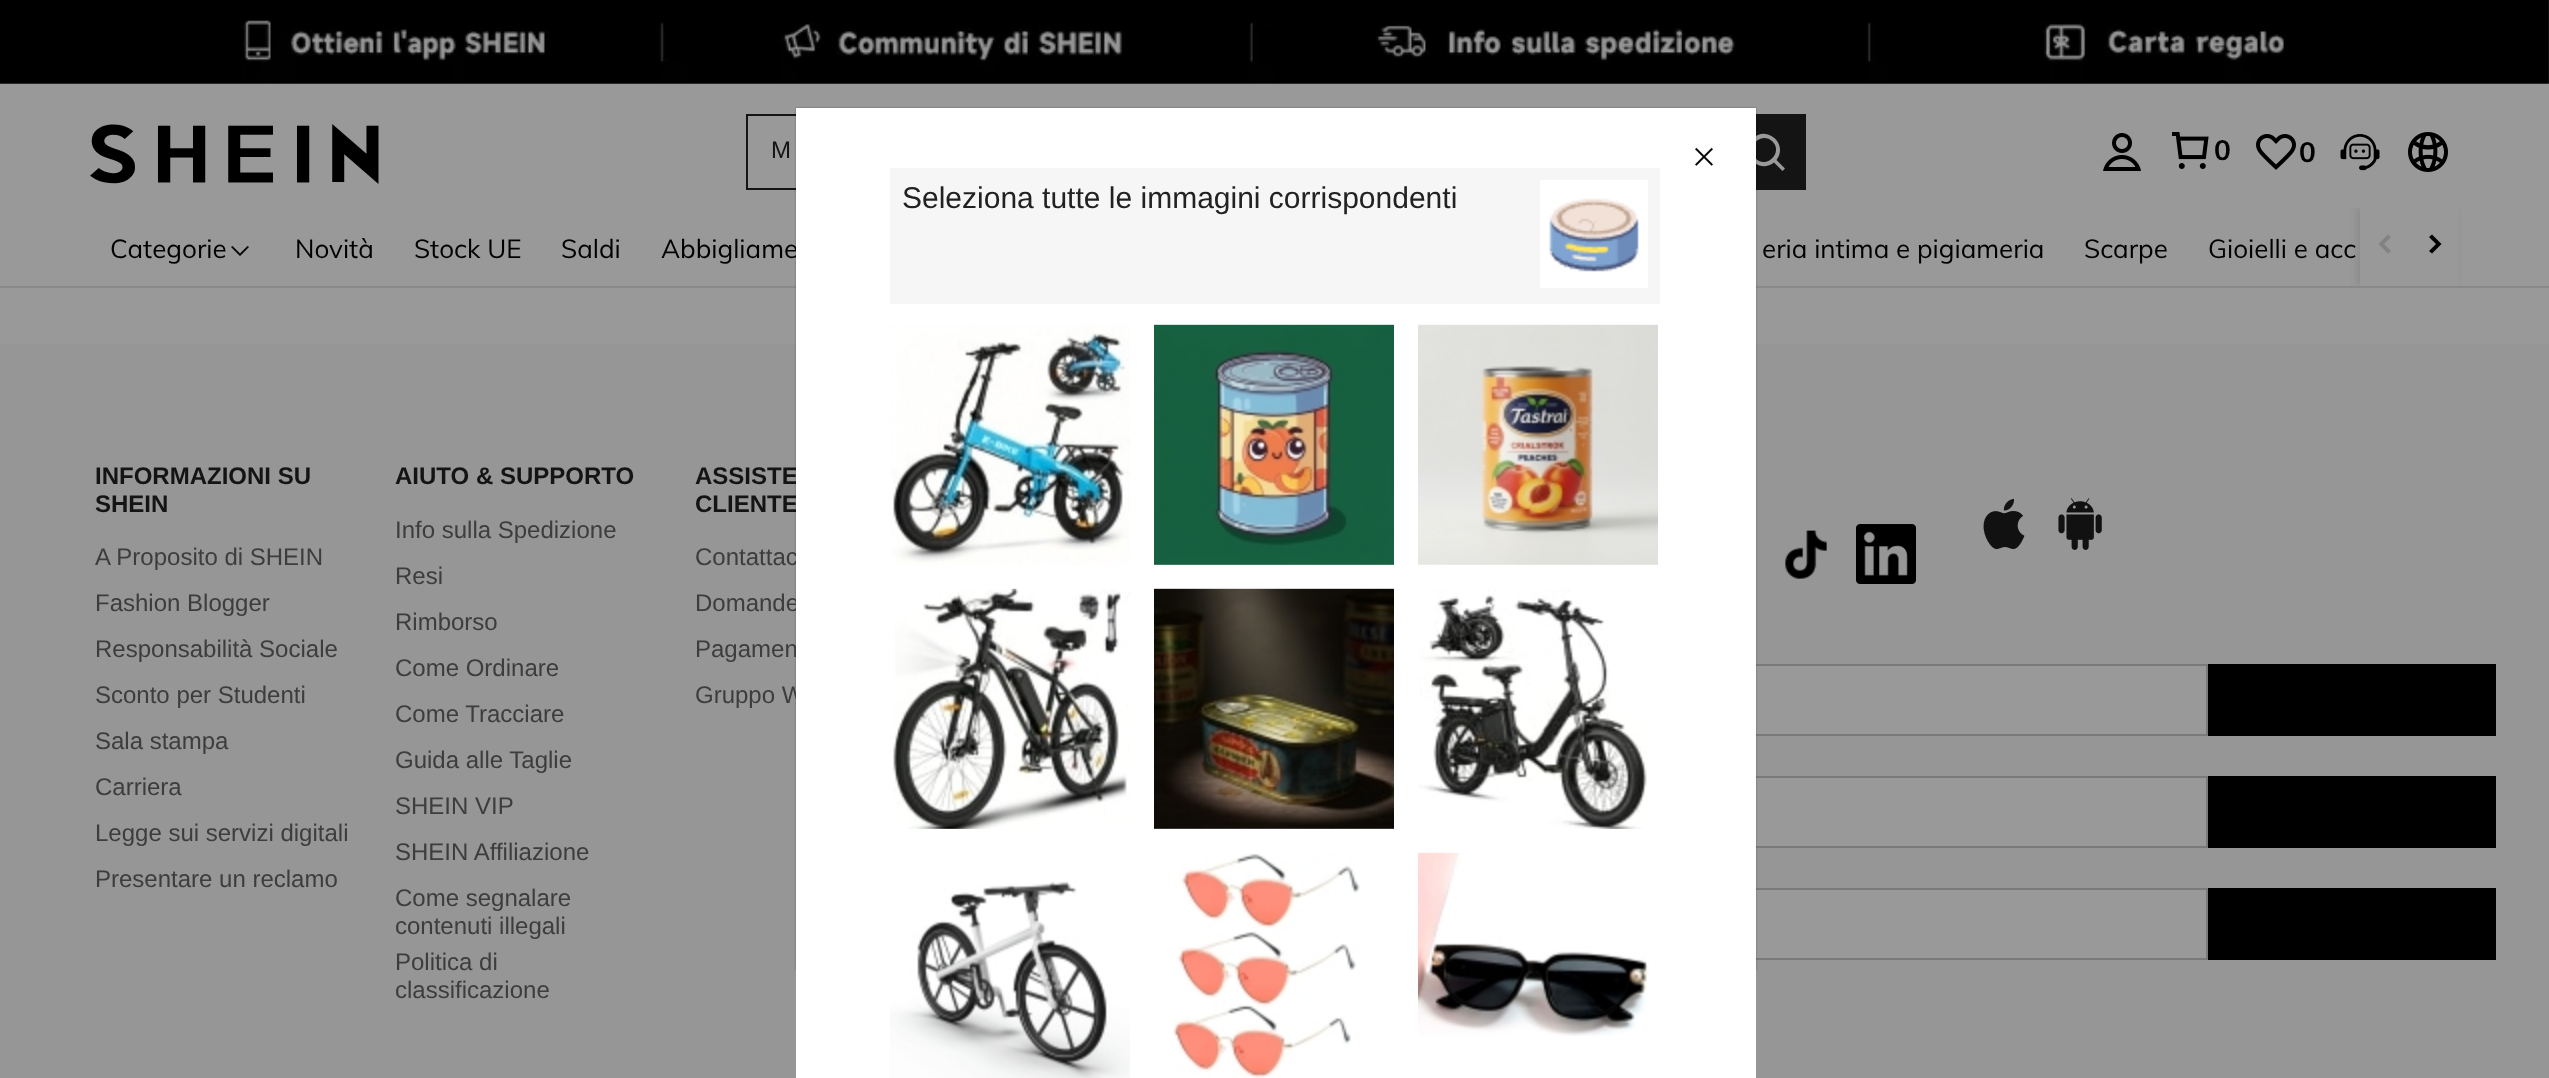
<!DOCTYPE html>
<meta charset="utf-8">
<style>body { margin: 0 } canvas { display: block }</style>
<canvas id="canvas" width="2549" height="1078"></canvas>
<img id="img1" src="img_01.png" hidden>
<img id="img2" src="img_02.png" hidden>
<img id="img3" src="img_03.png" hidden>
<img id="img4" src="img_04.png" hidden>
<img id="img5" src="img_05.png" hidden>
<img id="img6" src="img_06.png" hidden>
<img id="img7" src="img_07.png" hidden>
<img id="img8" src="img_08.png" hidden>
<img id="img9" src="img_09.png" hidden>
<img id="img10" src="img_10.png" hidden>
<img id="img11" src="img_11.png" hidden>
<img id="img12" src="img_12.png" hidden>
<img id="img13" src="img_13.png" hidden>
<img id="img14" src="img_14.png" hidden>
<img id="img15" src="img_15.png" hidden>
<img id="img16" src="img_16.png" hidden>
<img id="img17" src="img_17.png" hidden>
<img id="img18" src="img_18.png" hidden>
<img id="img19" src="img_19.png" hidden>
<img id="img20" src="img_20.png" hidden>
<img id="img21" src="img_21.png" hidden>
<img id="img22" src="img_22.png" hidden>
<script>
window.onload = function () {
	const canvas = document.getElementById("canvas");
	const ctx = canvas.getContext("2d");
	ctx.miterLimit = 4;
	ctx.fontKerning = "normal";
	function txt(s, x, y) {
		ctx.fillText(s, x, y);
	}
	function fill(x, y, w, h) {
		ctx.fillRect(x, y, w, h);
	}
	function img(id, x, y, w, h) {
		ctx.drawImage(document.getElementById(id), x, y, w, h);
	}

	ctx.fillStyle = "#999999";
	fill(0, 0, 2549, 1078);
	img("img1", 0, 0, 2549, 84);
	img("img2", 90, 124, 289, 60);
	ctx.fillStyle = "#141414";
	fill(746, 114, 50, 2);
	fill(746, 188, 50, 2);
	fill(746, 114, 2, 76);
	fill(1756, 114, 50, 76);
	ctx.fillStyle = "#999999";
	ctx.beginPath();
	ctx.moveTo(1752.5, 138.5);
	ctx.bezierCurveTo(1766.5, 124.5, 1789, 144, 1776.5, 160);
	ctx.lineTo(1785, 168.5);
	ctx.lineTo(1782.5, 171);
	ctx.lineTo(1774, 162.5);
	ctx.bezierCurveTo(1758, 175, 1738.5, 152.5, 1752.5, 138.5);
	ctx.closePath();
	ctx.moveTo(1772.5, 141.5);
	ctx.bezierCurveTo(1761.5, 130.5, 1744.5, 147.5, 1755.5, 158.5);
	ctx.bezierCurveTo(1766.5, 169.5, 1783.5, 152.5, 1772.5, 141.5);
	ctx.closePath();
	ctx.fill("evenodd");
	img("img3", 2103, 133, 38, 38);
	img("img4", 2172, 132, 37, 37);
	img("img5", 2256, 134, 40, 36);
	img("img6", 2340, 134, 40, 37);
	img("img7", 2408, 132, 40, 40);
	ctx.fillStyle = "#898989";
	fill(0, 286, 2549, 2);
	ctx.fillStyle = "#000000";
	ctx.beginPath();
	ctx.moveTo(247.5, 246);
	ctx.lineTo(249, 247);
	ctx.lineTo(240, 256);
	ctx.lineTo(231, 247);
	ctx.lineTo(232.5, 246);
	ctx.lineTo(240, 253.5);
	ctx.closePath();
	ctx.fill();
	ctx.save();
	ctx.beginPath();
	ctx.rect(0, 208, 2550, 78);
	ctx.clip();
	ctx.fillStyle = "rgba(0, 0, 0, 0.08)";
	ctx.filter = "blur(3px)";
	ctx.beginPath();
	ctx.rect(2356, 208, 100, 78);
	ctx.fill();
	ctx.filter = "none";
	ctx.restore();
	ctx.fillStyle = "#999999";
	fill(2360, 208, 98, 78);
	ctx.fillStyle = "#828282";
	ctx.beginPath();
	ctx.moveTo(2388, 234.5);
	ctx.lineTo(2391, 237);
	ctx.lineTo(2384, 244);
	ctx.lineTo(2391, 251);
	ctx.lineTo(2388, 253.5);
	ctx.lineTo(2378.5, 244);
	ctx.closePath();
	ctx.fill("evenodd");
	ctx.fillStyle = "#000000";
	ctx.beginPath();
	ctx.moveTo(2429, 237);
	ctx.lineTo(2432, 234.5);
	ctx.lineTo(2441.5, 244);
	ctx.lineTo(2432, 253.5);
	ctx.lineTo(2429, 251);
	ctx.lineTo(2436, 244);
	ctx.closePath();
	ctx.fill("evenodd");
	ctx.fillStyle = "#969696";
	fill(0, 344, 2549, 734);
	img("img8", 1785, 530, 42, 49);
	img("img9", 1856, 524, 60, 60);
	img("img10", 1983, 498, 42, 52);
	img("img11", 2058, 498, 44, 52);
	ctx.fillStyle = "#999999";
	fill(1756, 666, 450, 68);
	ctx.strokeStyle = "#7A7A7A";
	ctx.lineWidth = 2;
	ctx.strokeRect(1297, 665, 910, 70);
	ctx.fillStyle = "#000000";
	fill(2208, 664, 288, 72);
	ctx.fillStyle = "#999999";
	fill(1756, 778, 450, 68);
	ctx.strokeRect(1457, 777, 750, 70);
	ctx.fillStyle = "#000000";
	fill(2208, 776, 288, 72);
	ctx.fillStyle = "#999999";
	fill(1756, 890, 450, 68);
	ctx.strokeRect(1457, 889, 750, 70);
	ctx.fillStyle = "#000000";
	fill(2208, 888, 288, 72);
	ctx.fillStyle = "rgba(0, 0, 0, 0.3)";
	ctx.filter = "blur(1px)";
	ctx.beginPath();
	ctx.rect(796, 108, 960, 862);
	ctx.fill();
	ctx.filter = "none";
	ctx.font = "24px Liberation Sans";
	ctx.fillStyle = "#141414";
	txt("M", 771, 158);
	ctx.font = "bold 28px Muli";
	ctx.fillStyle = "#000000";
	txt("0", 2214, 160);
	txt("0", 2299, 162);
	ctx.font = "26px Muli";
	txt("Categorie", 110, 258);
	txt("Novità", 295, 258);
	txt("Stock UE", 414, 258);
	txt("Saldi", 561, 258);
	txt("Abbigliame", 661, 258);
	txt("eria intima e pigiameria", 1762, 258);
	txt("Scarpe", 2084, 258);
	txt("Gioielli e acc", 2208, 258);
	ctx.font = "bold 24px Liberation Sans";
	ctx.fillStyle = "#141414";
	txt("INFORMAZIONI SU", 95, 484);
	txt("SHEIN", 95, 512);
	ctx.font = "24px Liberation Sans";
	ctx.fillStyle = "#3D3D3D";
	txt("A Proposito di SHEIN", 95, 565);
	txt("Fashion Blogger", 95, 611);
	txt("Responsabilità Sociale", 95, 657);
	txt("Sconto per Studenti", 95, 703);
	txt("Sala stampa", 95, 749);
	txt("Carriera", 95, 795);
	txt("Legge sui servizi digitali", 95, 841);
	txt("Presentare un reclamo", 95, 887);
	ctx.font = "bold 24px Liberation Sans";
	ctx.fillStyle = "#141414";
	txt("AIUTO & SUPPORTO", 395, 484);
	ctx.font = "24px Liberation Sans";
	ctx.fillStyle = "#3D3D3D";
	txt("Info sulla Spedizione", 395, 538);
	txt("Resi", 395, 584);
	txt("Rimborso", 395, 630);
	txt("Come Ordinare", 395, 676);
	txt("Come Tracciare", 395, 722);
	txt("Guida alle Taglie", 395, 768);
	txt("SHEIN VIP", 395, 814);
	txt("SHEIN Affiliazione", 395, 860);
	txt("Come segnalare", 395, 906);
	txt("contenuti illegali", 395, 934);
	txt("Politica di", 395, 970);
	txt("classificazione", 395, 998);
	ctx.font = "bold 24px Liberation Sans";
	ctx.fillStyle = "#141414";
	txt("ASSISTE", 695, 484);
	txt("CLIENTE", 695, 512);
	ctx.font = "24px Liberation Sans";
	ctx.fillStyle = "#3D3D3D";
	txt("Contattac", 695, 565);
	txt("Domande", 695, 611);
	txt("Pagamen", 695, 657);
	txt("Gruppo W", 695, 703);
	ctx.fillStyle = "#FFFFFF";
	fill(796, 108, 960, 970);
	img("img12", 1695, 147, 18, 19);
	ctx.fillStyle = "#F6F6F6";
	fill(890, 168, 770, 136);
	ctx.font = "30px Liberation Sans";
	ctx.fillStyle = "#222222";
	txt("Seleziona tutte le immagini corrispondenti", 902, 208);
	ctx.fillStyle = "#FFFFFF";
	fill(1540, 180, 108, 108);
	img("img13", 1549, 198, 90, 74);
	img("img14", 890, 325, 240, 240);
	img("img15", 1154, 324, 240, 241);
	img("img16", 1418, 324, 240, 241);
	img("img17", 893, 588, 237, 241);
	img("img18", 1154, 588, 240, 241);
	img("img19", 1418, 589, 229, 240);
	img("img20", 890, 881, 240, 197);
	img("img21", 1173, 853, 187, 225);
	img("img22", 1418, 852, 232, 184);
};
</script>
